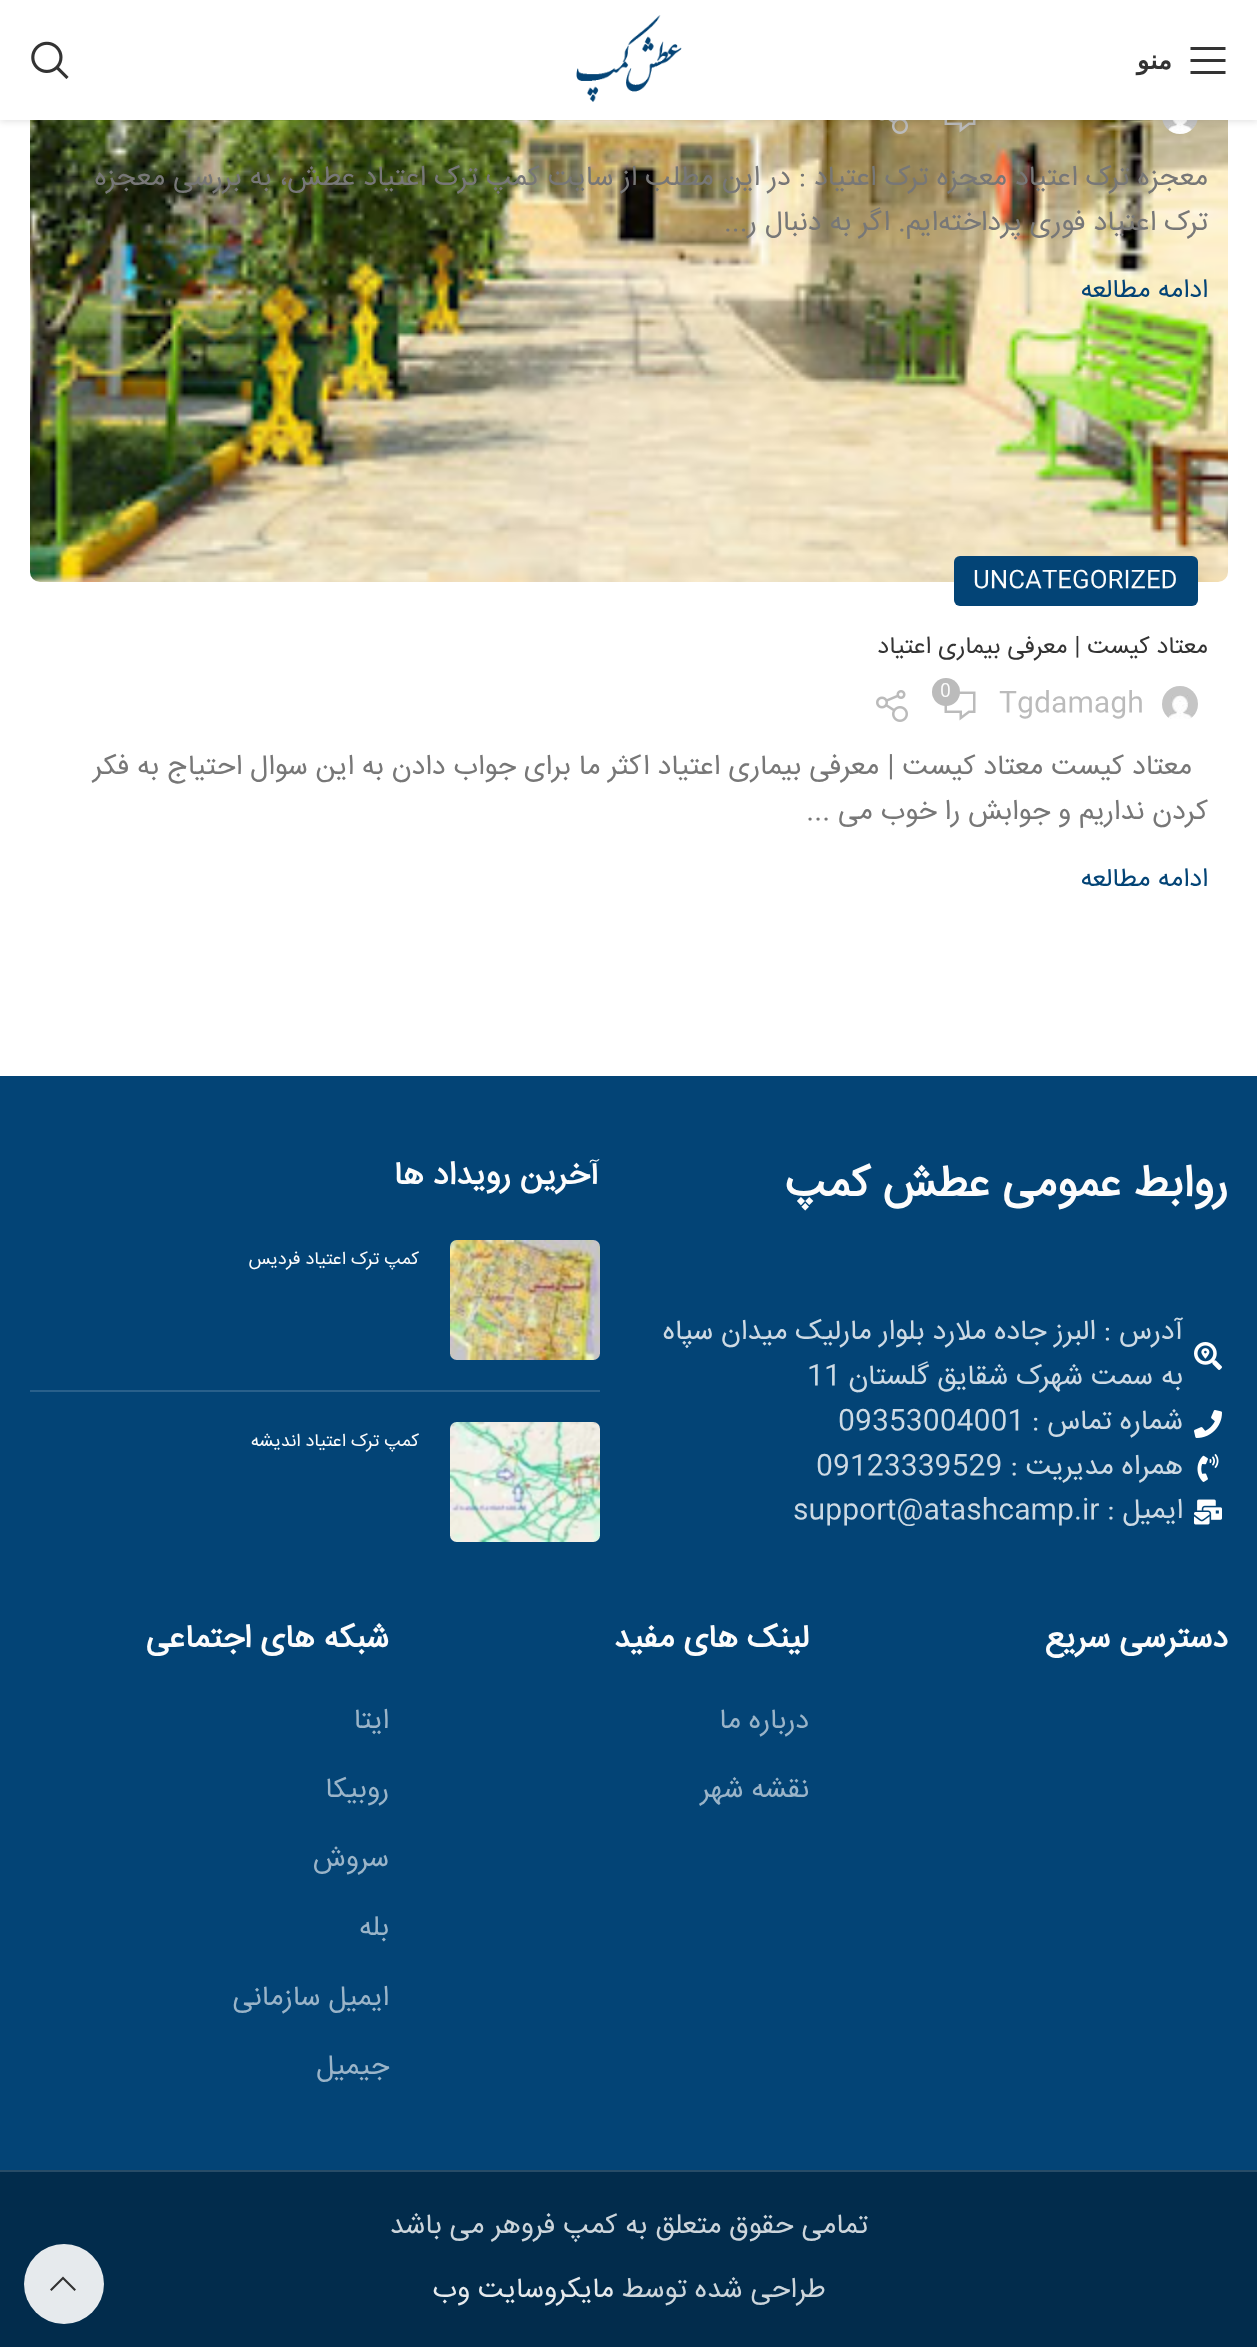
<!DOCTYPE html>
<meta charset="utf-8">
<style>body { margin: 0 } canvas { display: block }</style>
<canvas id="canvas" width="1257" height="2347"></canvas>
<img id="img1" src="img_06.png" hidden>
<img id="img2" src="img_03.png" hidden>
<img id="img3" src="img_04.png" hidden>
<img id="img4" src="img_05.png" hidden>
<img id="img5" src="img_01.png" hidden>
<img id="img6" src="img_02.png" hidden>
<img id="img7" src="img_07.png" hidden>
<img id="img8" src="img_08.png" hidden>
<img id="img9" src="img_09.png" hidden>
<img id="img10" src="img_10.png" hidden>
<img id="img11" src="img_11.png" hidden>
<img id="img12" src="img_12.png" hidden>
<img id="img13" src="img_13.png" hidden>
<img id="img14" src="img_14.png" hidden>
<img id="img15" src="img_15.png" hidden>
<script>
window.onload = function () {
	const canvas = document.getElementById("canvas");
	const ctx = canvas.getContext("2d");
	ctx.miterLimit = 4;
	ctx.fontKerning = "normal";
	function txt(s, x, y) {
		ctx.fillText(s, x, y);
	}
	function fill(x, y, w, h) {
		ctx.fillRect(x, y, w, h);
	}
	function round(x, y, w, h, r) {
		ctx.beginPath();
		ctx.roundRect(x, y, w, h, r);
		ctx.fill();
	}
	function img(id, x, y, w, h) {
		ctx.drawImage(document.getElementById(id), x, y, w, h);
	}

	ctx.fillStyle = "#FFFFFF";
	fill(0, 0, 1257, 2347);
	img("img1", 30, 120, 1198, 462);
	img("img2", 1162, 120, 36, 14);
	img("img3", 944, 120, 32, 13);
	img("img4", 879, 120, 29, 14);
	ctx.fillStyle = "rgba(0, 0, 0, 0.1)";
	ctx.filter = "blur(3px)";
	ctx.beginPath();
	ctx.rect(0, 2, 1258, 120);
	ctx.fill();
	ctx.filter = "none";
	ctx.fillStyle = "#FFFFFF";
	fill(0, 0, 1257, 120);
	ctx.fillStyle = "#333333";
	ctx.beginPath();
	ctx.moveTo(1190.5, 50);
	ctx.lineTo(1225.5, 50);
	ctx.lineTo(1225.5, 47);
	ctx.lineTo(1190.5, 47);
	ctx.closePath();
	ctx.moveTo(1190.5, 62);
	ctx.lineTo(1225.5, 62);
	ctx.lineTo(1225.5, 59);
	ctx.lineTo(1190.5, 59);
	ctx.closePath();
	ctx.moveTo(1190.5, 74);
	ctx.lineTo(1225.5, 74);
	ctx.lineTo(1225.5, 71);
	ctx.lineTo(1190.5, 71);
	ctx.closePath();
	ctx.fill();
	img("img5", 576, 15, 106, 87);
	img("img6", 31, 41, 38, 38);
	ctx.fillStyle = "#034476";
	round(954, 556, 244, 50, 6);
	img("img7", 1162, 686, 36, 33);
	img("img8", 944, 691, 32, 30);
	ctx.fillStyle = "#BBBBBB";
	ctx.beginPath();
	ctx.arc(946, 692, 14, 0, Math.PI * 2);
	ctx.fill();
	img("img9", 876, 690, 32, 32);
	ctx.fillStyle = "#034476";
	fill(0, 1076, 1257, 1094);
	img("img10", 1194, 1342, 28, 28);
	img("img11", 1194, 1410, 28, 28);
	img("img12", 1197, 1454, 22, 28);
	img("img13", 1194, 1499, 28, 26);
	ctx.fillStyle = "#29608B";
	fill(30, 1390, 570, 2);
	img("img14", 450, 1240, 150, 120);
	img("img15", 450, 1422, 150, 120);
	ctx.fillStyle = "#022C4C";
	fill(0, 2172, 1257, 175);
	ctx.fillStyle = "#284C67";
	fill(0, 2170, 1257, 2);
	ctx.fillStyle = "rgba(255, 255, 255, 0.9)";
	ctx.beginPath();
	ctx.arc(64, 2284, 40, 0, Math.PI * 2);
	ctx.fill();
	ctx.fillStyle = "#333333";
	ctx.beginPath();
	ctx.moveTo(74.5, 2291);
	ctx.lineTo(76, 2289.5);
	ctx.lineTo(63, 2276.5);
	ctx.lineTo(50, 2289.5);
	ctx.lineTo(51.5, 2291);
	ctx.lineTo(63, 2279.5);
	ctx.closePath();
	ctx.fill();
	ctx.direction = "rtl";
	ctx.font = "bold 26px DejaVu Sans";
	txt("منو", 1172, 69);
	ctx.font = "28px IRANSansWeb";
	ctx.fillStyle = "#777777";
	txt("معجزه ترک اعتیاد معجزه ترک اعتیاد : در این مطلب از سایت کمپ ترک اعتیاد عطش، به بررسی معجزه", 1208, 185);
	txt("ترک اعتیاد فوری پرداخته‌ایم. اگر به دنبال ر...", 1208, 230);
	ctx.font = "26px IRANSansWeb";
	ctx.fillStyle = "#034476";
	txt("ادامه مطالعه", 1208, 297);
	ctx.direction = "ltr";
	ctx.font = "24px IRANSansWeb";
	ctx.fillStyle = "#FCFCFC";
	txt("UNCATEGORIZED", 973, 587);
	ctx.direction = "rtl";
	ctx.fillStyle = "#333333";
	txt("معتاد کیست | معرفی بیماری اعتیاد", 1208, 653);
	ctx.direction = "ltr";
	ctx.font = "28px IRANSansWeb";
	ctx.fillStyle = "#BBBBBB";
	txt("Tgdamagh", 999, 711);
	ctx.font = "18px IRANSansWeb";
	ctx.fillStyle = "#FCFCFC";
	txt("0", 940, 696);
	ctx.direction = "rtl";
	ctx.font = "28px IRANSansWeb";
	ctx.fillStyle = "#777777";
	txt("معتاد کیست معتاد کیست | معرفی بیماری اعتیاد اکثر ما برای جواب دادن به این سوال احتیاج به فکر", 1192, 774);
	txt("کردن نداریم و جوابش را خوب می ...", 1208, 819);
	ctx.font = "26px IRANSansWeb";
	ctx.fillStyle = "#034476";
	txt("ادامه مطالعه", 1208, 886);
	ctx.font = "bold 44px IRANSansWeb";
	ctx.fillStyle = "#FCFCFC";
	txt("روابط عمومی عطش کمپ", 1228, 1196);
	ctx.font = "28px IRANSansWeb";
	ctx.fillStyle = "#CDDAE4";
	txt("آدرس : البرز جاده ملارد بلوار مارلیک میدان سپاه", 1183, 1339);
	txt("به سمت شهرک شقایق گلستان", 1183, 1384);
	ctx.direction = "ltr";
	txt("11", 807, 1384);
	ctx.direction = "rtl";
	txt("شماره تماس :", 1183, 1429);
	ctx.direction = "ltr";
	txt("09353004001", 838, 1429);
	ctx.direction = "rtl";
	txt("همراه مدیریت :", 1183, 1474);
	ctx.direction = "ltr";
	txt("09123339529", 816, 1474);
	ctx.direction = "rtl";
	txt("ایمیل :", 1183, 1518);
	ctx.direction = "ltr";
	txt("support@atashcamp.ir", 793, 1518);
	ctx.direction = "rtl";
	ctx.font = "bold 32px IRANSansWeb";
	ctx.fillStyle = "#FCFCFC";
	txt("آخرین رویداد ها", 599, 1184);
	ctx.font = "18px IRANSansWeb";
	txt("کمپ ترک اعتیاد فردیس", 419, 1264);
	txt("کمپ ترک اعتیاد اندیشه", 419, 1446);
	ctx.font = "bold 32px IRANSansWeb";
	txt("دسترسی سریع", 1228, 1647);
	txt("لینک های مفید", 809, 1647);
	ctx.font = "28px IRANSansWeb";
	ctx.fillStyle = "#9AB4C8";
	txt("درباره ما", 809, 1728);
	txt("نقشه شهر", 809, 1797);
	ctx.font = "bold 32px IRANSansWeb";
	ctx.fillStyle = "#FCFCFC";
	txt("شبکه های اجتماعی", 389, 1647);
	ctx.font = "28px IRANSansWeb";
	ctx.fillStyle = "#9AB4C8";
	txt("ایتا", 389, 1728);
	txt("روبیکا", 389, 1797);
	txt("سروش", 389, 1866);
	txt("بله", 389, 1935);
	txt("ایمیل سازمانی", 389, 2005);
	txt("جیمیل", 389, 2074);
	ctx.fillStyle = "#CCD5DB";
	txt("تمامی حقوق متعلق به کمپ فروهر می باشد", 868, 2233);
	txt("طراحی شده توسط", 826, 2297);
	ctx.fillStyle = "#E6EAED";
	txt("مایکروسایت وب", 614, 2297);
};
</script>
